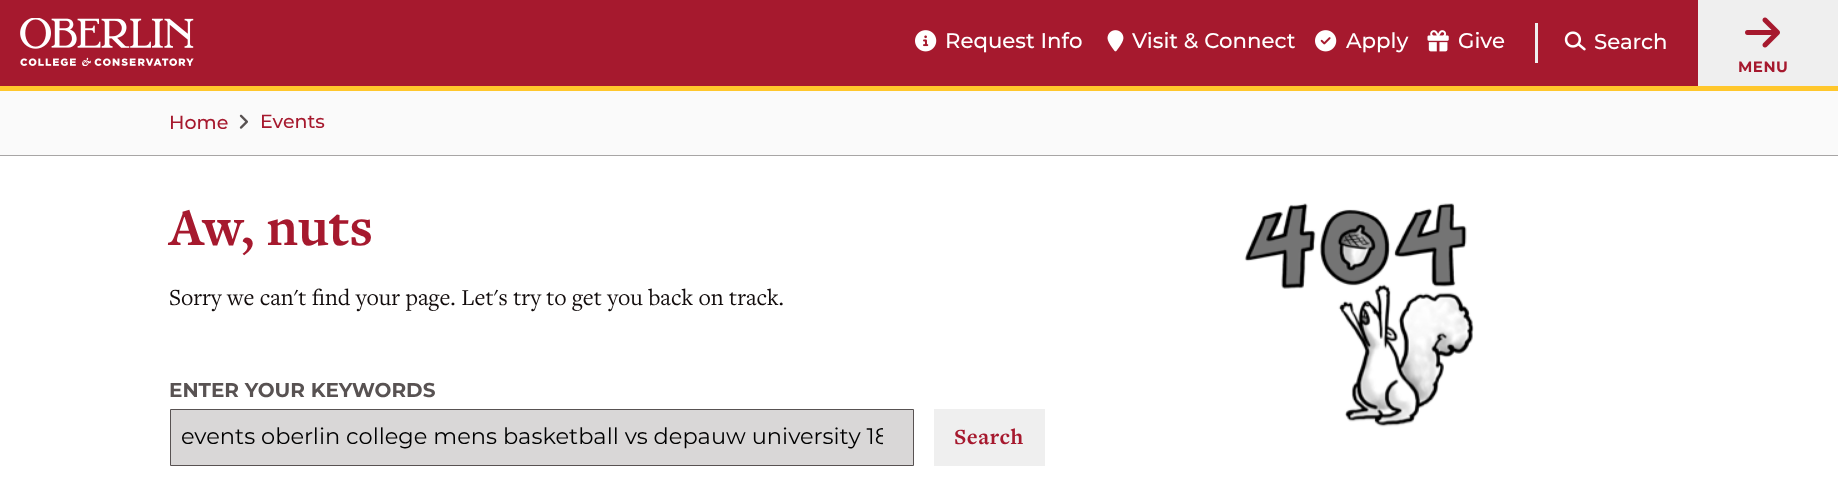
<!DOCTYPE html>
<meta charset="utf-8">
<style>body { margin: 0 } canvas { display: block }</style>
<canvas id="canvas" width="1838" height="496"></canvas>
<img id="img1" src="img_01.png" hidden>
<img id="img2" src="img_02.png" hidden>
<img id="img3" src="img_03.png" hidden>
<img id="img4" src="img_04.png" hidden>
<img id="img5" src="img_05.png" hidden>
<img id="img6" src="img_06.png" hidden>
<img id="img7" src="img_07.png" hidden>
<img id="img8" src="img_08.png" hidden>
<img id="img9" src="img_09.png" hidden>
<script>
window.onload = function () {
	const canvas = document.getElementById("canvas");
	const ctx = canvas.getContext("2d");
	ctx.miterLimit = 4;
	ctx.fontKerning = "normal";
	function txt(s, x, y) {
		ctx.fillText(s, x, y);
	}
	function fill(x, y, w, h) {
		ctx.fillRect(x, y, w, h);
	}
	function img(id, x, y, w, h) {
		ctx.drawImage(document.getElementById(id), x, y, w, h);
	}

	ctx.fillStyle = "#FFFFFF";
	fill(0, 0, 1838, 496);
	ctx.fillStyle = "#A6192E";
	fill(0, 0, 1698, 86);
	ctx.fillStyle = "#FFC72C";
	fill(0, 86, 1838, 5);
	img("img1", 20, 18, 174, 48);
	img("img2", 915, 30, 22, 22);
	img("img3", 1107, 30, 17, 22);
	img("img4", 1315, 30, 22, 22);
	img("img5", 1427, 30, 22, 22);
	ctx.fillStyle = "#EFEFEF";
	fill(1535, 23, 3, 40);
	img("img6", 1564, 31, 22, 20);
	fill(1698, 0, 140, 86);
	img("img7", 1745, 17, 35, 31);
	ctx.fillStyle = "#FAFAFA";
	fill(0, 91, 1838, 64);
	ctx.fillStyle = "#A7A5A5";
	fill(0, 155, 1838, 1);
	img("img8", 239, 114, 9, 15);
	ctx.fillStyle = "#D9D7D7";
	ctx.beginPath();
	ctx.rect(170.5, 409.5, 743, 56);
	ctx.fill();
	ctx.strokeStyle = "#585252";
	ctx.stroke();
	ctx.fillStyle = "#EFEFEF";
	fill(934, 409, 111, 57);
	img("img9", 1244, 203, 230, 224);
	ctx.font = "500 21.25px Montserrat";
	ctx.fillStyle = "#FFFFFF";
	txt("Request Info", 945, 48);
	txt("Visit & Connect", 1132, 48);
	txt("Apply", 1346, 48);
	txt("Give", 1458, 48);
	txt("Search", 1594, 49);
	ctx.letterSpacing = "0.5px";
	ctx.font = "bold 15px Montserrat";
	ctx.fillStyle = "#A6192E";
	txt("MENU", 1738, 72);
	ctx.letterSpacing = "0px";
	ctx.font = "500 19px Montserrat";
	txt("Home", 169, 129);
	txt("Events", 260, 128);
	ctx.font = "bold 55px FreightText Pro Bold";
	txt("Aw, nuts", 169, 245);
	ctx.font = "23.75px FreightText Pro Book";
	ctx.fillStyle = "#120C0C";
	txt("Sorry we can't find your page. Let's try to get you back on track.", 169, 305);
	ctx.font = "bold 20px Montserrat";
	ctx.fillStyle = "#585252";
	txt("ENTER YOUR KEYWORDS", 169, 397);
	ctx.save();
	ctx.beginPath();
	ctx.rect(181, 423, 702, 27);
	ctx.clip();
	ctx.font = "22.5px Montserrat";
	ctx.fillStyle = "#000000";
	txt("events oberlin college mens basketball vs depauw university 18", 181, 444);
	ctx.restore();
	ctx.letterSpacing = "0.5px";
	ctx.font = "bold 22.5px FreightText Pro Bold";
	ctx.fillStyle = "#A6192E";
	txt("Search", 954, 444);
};
</script>
